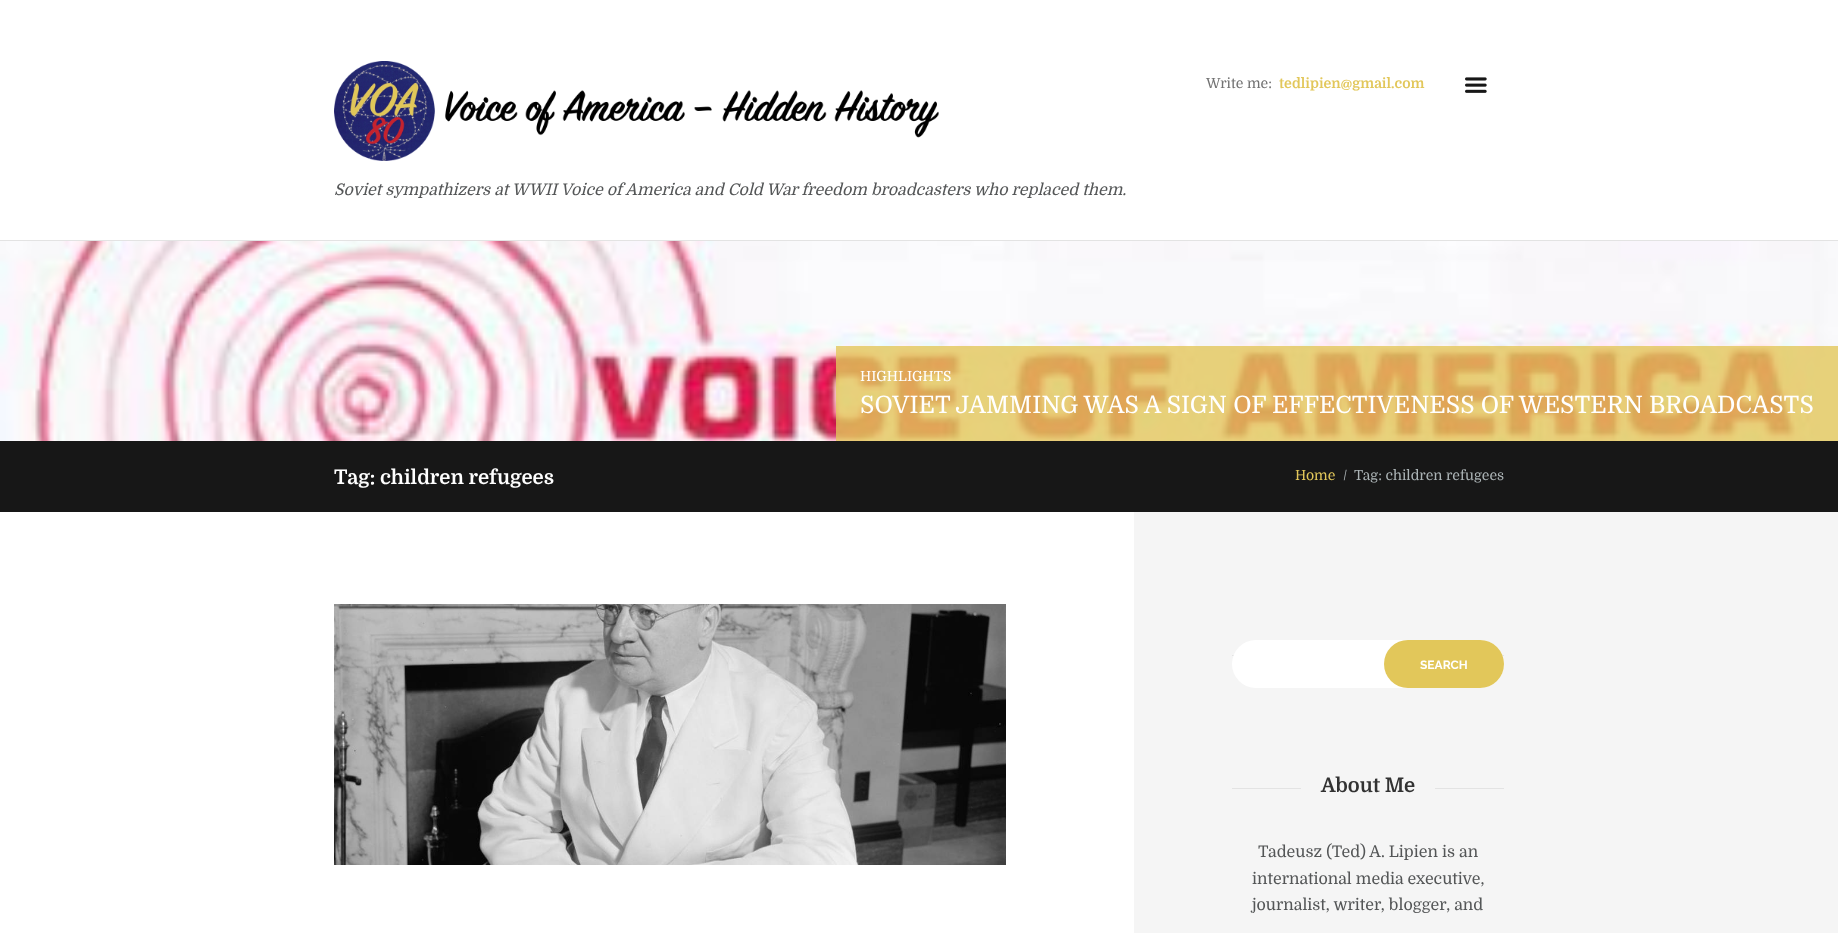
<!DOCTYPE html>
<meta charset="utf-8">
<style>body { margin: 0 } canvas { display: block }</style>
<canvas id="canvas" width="1838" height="933"></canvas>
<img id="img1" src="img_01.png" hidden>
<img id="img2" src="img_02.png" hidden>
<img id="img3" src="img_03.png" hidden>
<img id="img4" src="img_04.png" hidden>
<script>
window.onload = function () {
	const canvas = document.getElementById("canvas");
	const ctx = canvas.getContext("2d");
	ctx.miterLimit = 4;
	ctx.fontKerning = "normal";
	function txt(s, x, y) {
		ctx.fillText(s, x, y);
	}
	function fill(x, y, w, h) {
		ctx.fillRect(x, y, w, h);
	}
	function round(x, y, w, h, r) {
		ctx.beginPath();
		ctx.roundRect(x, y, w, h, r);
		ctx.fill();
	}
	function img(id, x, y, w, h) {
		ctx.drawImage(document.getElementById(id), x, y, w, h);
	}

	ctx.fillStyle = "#FFFFFF";
	fill(0, 0, 1838, 933);
	ctx.fillStyle = "#E3E3E3";
	fill(0, 240, 1838, 1);
	img("img1", 1465, 77, 22, 16);
	img("img2", 334, 61, 605, 100);
	img("img3", 0, 241, 1838, 200);
	ctx.fillStyle = "rgba(226, 199, 90, 0.8)";
	fill(836, 346, 1002, 95);
	ctx.fillStyle = "#171717";
	fill(0, 441, 1838, 71);
	img("img4", 334, 604, 672, 261);
	ctx.fillStyle = "#F5F5F5";
	fill(1134, 512, 704, 421);
	ctx.fillStyle = "#E3E3E3";
	fill(1232, 655, 272, 1);
	ctx.fillStyle = "#FFFFFF";
	round(1232, 640, 272, 48, 24);
	ctx.fillStyle = "#E2C75A";
	round(1384, 640, 120, 48, 24);
	ctx.fillStyle = "#E3E3E3";
	fill(1232, 788, 272, 1);
	ctx.fillStyle = "#F5F5F5";
	fill(1301, 788, 134, 1);
	ctx.font = "14px Domine";
	ctx.fillStyle = "#727272";
	txt("Write me:", 1206, 88);
	ctx.font = "bold 14px Domine";
	ctx.fillStyle = "#E2C75A";
	txt("tedlipien@gmail.com", 1279, 88);
	ctx.font = "italic 16px Domine";
	ctx.fillStyle = "#545657";
	txt("Soviet sympathizers at WWII Voice of America and Cold War freedom broadcasters who replaced them.", 334, 195);
	ctx.font = "14px Domine";
	ctx.fillStyle = "#FFFFFF";
	txt("HIGHLIGHTS", 860, 381);
	ctx.font = "24px Domine";
	txt("SOVIET JAMMING WAS A SIGN OF EFFECTIVENESS OF WESTERN BROADCASTS", 860, 413);
	ctx.font = "bold 20px Domine";
	txt("Tag: children refugees", 334, 484);
	ctx.font = "14px Domine";
	ctx.fillStyle = "#E2C75A";
	txt("Home", 1295, 480);
	ctx.fillStyle = "#ACB4B6";
	txt("/", 1343, 480);
	txt("Tag: children refugees", 1354, 480);
	ctx.font = "bold 12px Raleway";
	ctx.fillStyle = "#FFFFFF";
	txt("SEARCH", 1420, 669);
	ctx.font = "bold 20px Domine";
	ctx.fillStyle = "#323232";
	txt("About Me", 1321, 792);
	ctx.font = "16px Domine";
	ctx.fillStyle = "#545657";
	txt("Tadeusz (Ted) A. Lipien is an", 1258, 857);
	txt("international media executive,", 1252, 884);
	txt("journalist, writer, blogger, and", 1252, 910);
};
</script>
